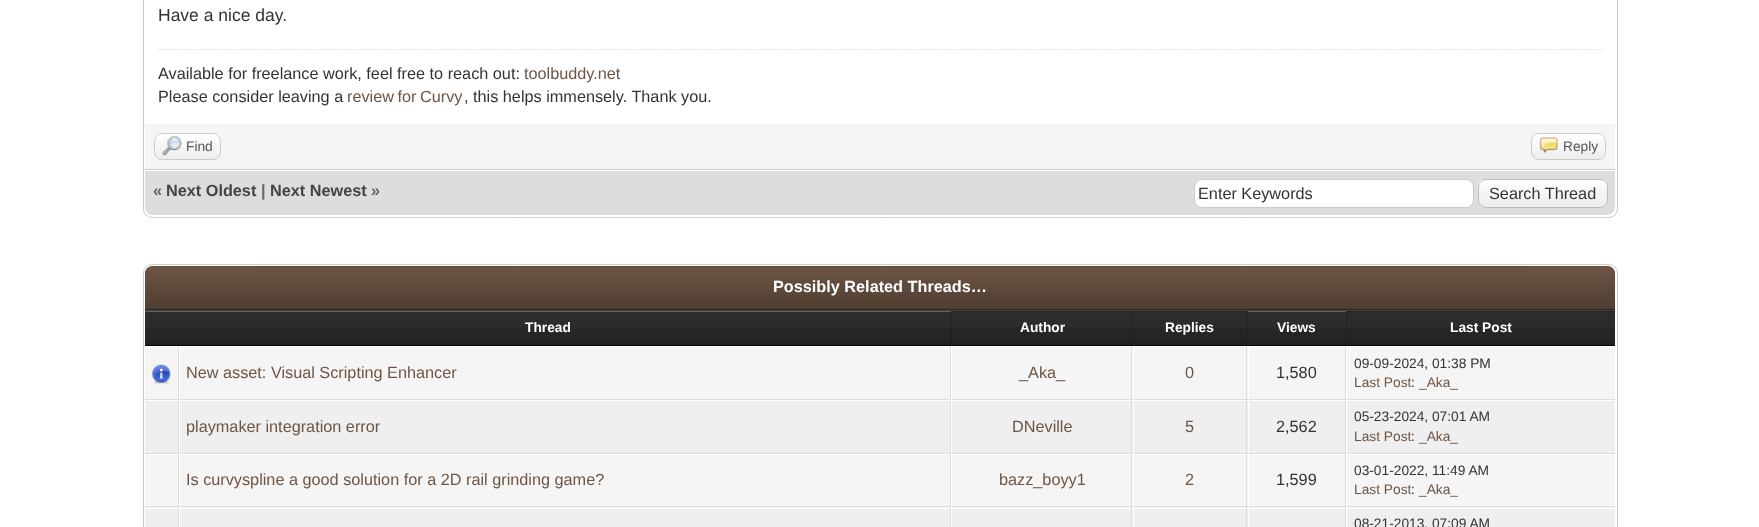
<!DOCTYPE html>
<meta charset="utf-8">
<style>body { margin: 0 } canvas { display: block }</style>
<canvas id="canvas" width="1759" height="527"></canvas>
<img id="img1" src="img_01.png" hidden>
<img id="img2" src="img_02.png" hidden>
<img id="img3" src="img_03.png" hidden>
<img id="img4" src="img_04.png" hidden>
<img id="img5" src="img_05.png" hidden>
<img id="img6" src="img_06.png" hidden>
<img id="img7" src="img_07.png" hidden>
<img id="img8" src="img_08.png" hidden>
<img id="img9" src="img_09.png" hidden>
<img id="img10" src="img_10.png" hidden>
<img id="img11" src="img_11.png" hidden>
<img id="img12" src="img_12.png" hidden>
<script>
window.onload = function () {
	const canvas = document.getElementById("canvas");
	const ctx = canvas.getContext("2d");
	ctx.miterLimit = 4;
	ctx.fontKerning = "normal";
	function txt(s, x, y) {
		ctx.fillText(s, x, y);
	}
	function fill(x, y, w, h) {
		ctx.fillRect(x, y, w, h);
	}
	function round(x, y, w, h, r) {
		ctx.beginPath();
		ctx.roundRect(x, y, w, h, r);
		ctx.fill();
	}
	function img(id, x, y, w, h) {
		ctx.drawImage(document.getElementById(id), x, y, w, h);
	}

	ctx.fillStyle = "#FFFFFF";
	fill(0, 0, 1759, 527);
	ctx.beginPath();
	ctx.roundRect(143.5, -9.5, 1474, 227, 8.5);
	ctx.strokeStyle = "#CCCCCC";
	ctx.stroke();
	ctx.beginPath();
	ctx.moveTo(157.5, 49.5);
	ctx.lineTo(1602.5, 49.5);
	ctx.strokeStyle = "#DDDDDD";
	ctx.lineWidth = 1.2;
	ctx.setLineDash([1.25, 1.25]);
	ctx.stroke();
	ctx.fillStyle = "#F5F5F5";
	fill(145, 124, 1470, 45);
	ctx.fillStyle = "#CCCCCC";
	fill(145, 169, 1470, 1);
	img("img1", 154, 133, 67, 27);
	ctx.beginPath();
	ctx.roundRect(154.5, 133.5, 66, 26, 7.5);
	ctx.strokeStyle = "#CCCCCC";
	ctx.lineWidth = 1;
	ctx.setLineDash([]);
	ctx.stroke();
	img("img2", 162, 136, 20, 20);
	img("img3", 1531, 133, 75, 27);
	ctx.beginPath();
	ctx.roundRect(1531.5, 133.5, 74, 26, 7.5);
	ctx.stroke();
	img("img4", 1539, 137, 19, 16);
	ctx.fillStyle = "#DDDDDD";
	ctx.beginPath();
	ctx.roundRect(145, 170, 1470, 45, [0, 0, 8, 8]);
	ctx.fill();
	ctx.fillStyle = "#FFFFFF";
	fill(145, 170, 1470, 1);
	ctx.beginPath();
	ctx.roundRect(1194.5, 179.5, 279, 28, 7.5);
	ctx.fill();
	ctx.stroke();
	ctx.fillStyle = "#EEEEEE";
	round(1478, 179, 130, 29, 8);
	img("img5", 1477, 180, 130, 25);
	ctx.beginPath();
	ctx.roundRect(1478.5, 179.5, 129, 28, 7.5);
	ctx.strokeStyle = "#BBBBBB";
	ctx.stroke();
	ctx.beginPath();
	ctx.roundRect(143.5, 264.5, 1474, 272, 8.5);
	ctx.strokeStyle = "#CCCCCC";
	ctx.stroke();
	ctx.fillStyle = "#4A3B2F";
	ctx.beginPath();
	ctx.roundRect(145, 266, 1470, 44, [8, 8, 0, 0]);
	ctx.fill();
	img("img6", 145, 266, 1470, 43);
	ctx.fillStyle = "#31261E";
	fill(145, 309, 1470, 1);
	img("img7", 145, 311, 806, 34);
	ctx.fillStyle = "#444444";
	fill(145, 310, 1470, 1);
	ctx.fillStyle = "#000000";
	fill(145, 345, 988, 1);
	ctx.fillStyle = "#0F0F0F";
	fill(951, 311, 297, 34);
	img("img8", 951, 311, 182, 34);
	img("img9", 1132, 311, 116, 35);
	ctx.fillStyle = "#000000";
	fill(1133, 345, 115, 1);
	img("img10", 1247, 311, 99, 35);
	fill(1248, 345, 367, 1);
	ctx.fillStyle = "#0F0F0F";
	fill(1346, 311, 269, 34);
	img("img11", 1346, 311, 269, 34);
	ctx.fillStyle = "#F5F5F5";
	fill(145, 347, 33, 52);
	ctx.fillStyle = "#DDDDDD";
	fill(178, 346, 1, 162);
	fill(145, 399, 34, 1);
	img("img12", 152, 364, 19, 20);
	ctx.fillStyle = "#F5F5F5";
	fill(180, 347, 770, 52);
	ctx.fillStyle = "#DDDDDD";
	fill(950, 346, 1, 181);
	fill(179, 399, 772, 1);
	ctx.fillStyle = "#FFFFFF";
	fill(179, 399, 1, 1);
	ctx.fillStyle = "#F5F5F5";
	fill(952, 347, 181, 52);
	ctx.fillStyle = "#DDDDDD";
	fill(1131, 346, 1, 54);
	fill(951, 399, 182, 1);
	ctx.fillStyle = "#FFFFFF";
	fill(951, 399, 1, 1);
	ctx.fillStyle = "#F5F5F5";
	fill(1134, 347, 114, 52);
	ctx.fillStyle = "#DDDDDD";
	fill(1246, 346, 1, 54);
	fill(1133, 399, 115, 1);
	ctx.fillStyle = "#FFFFFF";
	fill(1133, 399, 1, 1);
	ctx.fillStyle = "#F5F5F5";
	fill(1249, 347, 96, 52);
	ctx.fillStyle = "#DDDDDD";
	fill(1345, 346, 1, 181);
	fill(1248, 399, 367, 1);
	ctx.fillStyle = "#FFFFFF";
	fill(1248, 399, 1, 1);
	ctx.fillStyle = "#F5F5F5";
	fill(1347, 347, 268, 52);
	ctx.fillStyle = "#FFFFFF";
	fill(1346, 399, 1, 1);
	ctx.fillStyle = "#EFEFEF";
	fill(145, 401, 33, 52);
	ctx.fillStyle = "#DDDDDD";
	fill(145, 453, 806, 1);
	ctx.fillStyle = "#EFEFEF";
	fill(1347, 401, 268, 52);
	fill(1134, 401, 114, 52);
	ctx.fillStyle = "#DDDDDD";
	fill(1246, 400, 1, 54);
	fill(1133, 453, 482, 1);
	ctx.fillStyle = "#FFFFFF";
	fill(1346, 453, 1, 1);
	ctx.fillStyle = "#EFEFEF";
	fill(180, 401, 770, 52);
	ctx.fillStyle = "#FFFFFF";
	fill(179, 453, 1, 1);
	ctx.fillStyle = "#EFEFEF";
	fill(952, 401, 181, 52);
	ctx.fillStyle = "#DDDDDD";
	fill(1131, 400, 1, 54);
	fill(951, 453, 182, 1);
	ctx.fillStyle = "#FFFFFF";
	fill(951, 453, 1, 1);
	fill(1133, 453, 1, 1);
	ctx.fillStyle = "#EFEFEF";
	fill(1249, 401, 96, 52);
	ctx.fillStyle = "#FFFFFF";
	fill(1248, 453, 1, 1);
	ctx.fillStyle = "#F5F5F5";
	fill(145, 455, 33, 53);
	ctx.fillStyle = "#DDDDDD";
	fill(145, 506, 34, 1);
	ctx.fillStyle = "#F5F5F5";
	fill(180, 455, 770, 53);
	ctx.fillStyle = "#DDDDDD";
	fill(179, 506, 772, 1);
	ctx.fillStyle = "#FFFFFF";
	fill(179, 506, 1, 2);
	ctx.fillStyle = "#F5F5F5";
	fill(952, 455, 181, 53);
	ctx.fillStyle = "#DDDDDD";
	fill(1131, 454, 1, 54);
	fill(951, 506, 182, 1);
	ctx.fillStyle = "#FFFFFF";
	fill(951, 506, 1, 2);
	ctx.fillStyle = "#F5F5F5";
	fill(1134, 455, 114, 53);
	ctx.fillStyle = "#DDDDDD";
	fill(1246, 454, 1, 54);
	fill(1133, 506, 115, 1);
	ctx.fillStyle = "#FFFFFF";
	fill(1133, 506, 1, 2);
	ctx.fillStyle = "#F5F5F5";
	fill(1249, 455, 96, 53);
	ctx.fillStyle = "#DDDDDD";
	fill(1248, 506, 98, 1);
	ctx.fillStyle = "#FFFFFF";
	fill(1248, 506, 1, 2);
	ctx.fillStyle = "#F5F5F5";
	fill(1347, 455, 268, 53);
	ctx.fillStyle = "#DDDDDD";
	fill(1346, 506, 269, 1);
	ctx.fillStyle = "#FFFFFF";
	fill(1346, 506, 1, 2);
	ctx.fillStyle = "#EFEFEF";
	fill(145, 508, 34, 19);
	ctx.fillStyle = "#FFFFFF";
	ctx.beginPath();
	ctx.moveTo(145, 509);
	ctx.lineTo(177, 509);
	ctx.lineTo(178, 508);
	ctx.lineTo(145, 508);
	ctx.closePath();
	ctx.fill();
	ctx.fillStyle = "#DDDDDD";
	ctx.beginPath();
	ctx.moveTo(177, 509);
	ctx.lineTo(179, 508);
	ctx.lineTo(179, 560);
	ctx.lineTo(178, 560);
	ctx.lineTo(178, 509);
	ctx.closePath();
	ctx.fill();
	ctx.fillStyle = "#EFEFEF";
	fill(180, 509, 770, 18);
	fill(952, 509, 181, 18);
	ctx.fillStyle = "#DDDDDD";
	fill(1131, 508, 1, 19);
	ctx.fillStyle = "#EFEFEF";
	fill(1134, 509, 114, 18);
	ctx.fillStyle = "#DDDDDD";
	fill(1246, 508, 1, 19);
	ctx.fillStyle = "#EFEFEF";
	fill(1249, 509, 96, 18);
	fill(1347, 509, 268, 18);
	ctx.font = "17.5px Liberation Sans";
	ctx.fillStyle = "#333333";
	txt("Have a nice day.", 158, 21);
	ctx.font = "16.25px Liberation Sans";
	txt("Available for freelance work, feel free to reach out:", 158, 79);
	ctx.fillStyle = "#6D5545";
	txt("toolbuddy.net", 524, 79);
	ctx.fillStyle = "#333333";
	txt("Please consider leaving a", 158, 102);
	ctx.wordSpacing = "-1px";
	ctx.fillStyle = "#6D5545";
	txt("review for Curvy", 347, 102);
	ctx.wordSpacing = "0px";
	ctx.fillStyle = "#333333";
	txt(", this helps immensely. Thank you.", 464, 102);
	ctx.font = "13.75px Liberation Sans";
	ctx.fillStyle = "#555555";
	txt("Find", 186, 151);
	txt("Reply", 1563, 151);
	ctx.font = "bold 16.25px Liberation Sans";
	ctx.fillStyle = "#666666";
	txt("«", 153, 196);
	ctx.fillStyle = "#444444";
	txt("Next Oldest", 166, 196);
	ctx.fillStyle = "#666666";
	txt("|", 261, 196);
	ctx.fillStyle = "#444444";
	txt("Next Newest", 270, 196);
	ctx.fillStyle = "#666666";
	txt("»", 371, 196);
	ctx.font = "16.25px Liberation Sans";
	ctx.fillStyle = "#333333";
	txt("Enter Keywords", 1198, 199);
	txt("Search Thread", 1489, 199);
	ctx.font = "bold 16.25px Liberation Sans";
	ctx.fillStyle = "#FFFFFF";
	txt("Possibly Related Threads…", 773, 292);
	ctx.font = "bold 13.75px Liberation Sans";
	txt("Thread", 525, 332);
	txt("Author", 1020, 332);
	txt("Replies", 1165, 332);
	txt("Views", 1277, 332);
	txt("Last Post", 1450, 332);
	ctx.font = "16.25px Liberation Sans";
	ctx.fillStyle = "#6D5545";
	txt("New asset: Visual Scripting Enhancer", 186, 378);
	txt("_Aka_", 1019, 378);
	txt("0", 1185, 378);
	ctx.fillStyle = "#333333";
	txt("1,580", 1276, 378);
	ctx.font = "13.75px Liberation Sans";
	txt("09-09-2024, 01:38 PM", 1354, 368);
	ctx.fillStyle = "#6D5545";
	txt("Last Post", 1354, 387);
	ctx.fillStyle = "#333333";
	txt(":", 1411, 387);
	ctx.fillStyle = "#6D5545";
	txt("_Aka_", 1419, 387);
	ctx.fillStyle = "#333333";
	txt("05-23-2024, 07:01 AM", 1354, 421);
	ctx.fillStyle = "#6D5545";
	txt("Last Post", 1354, 441);
	ctx.fillStyle = "#333333";
	txt(":", 1411, 441);
	ctx.fillStyle = "#6D5545";
	txt("_Aka_", 1419, 441);
	ctx.font = "16.25px Liberation Sans";
	txt("playmaker integration error", 186, 432);
	txt("DNeville", 1012, 432);
	txt("5", 1185, 432);
	ctx.fillStyle = "#333333";
	txt("2,562", 1276, 432);
	ctx.fillStyle = "#6D5545";
	txt("Is curvyspline a good solution for a 2D rail grinding game?", 186, 485);
	txt("bazz_boyy1", 999, 485);
	txt("2", 1185, 485);
	ctx.fillStyle = "#333333";
	txt("1,599", 1276, 485);
	ctx.font = "13.75px Liberation Sans";
	txt("03-01-2022, 11:49 AM", 1354, 475);
	ctx.fillStyle = "#6D5545";
	txt("Last Post", 1354, 494);
	ctx.fillStyle = "#333333";
	txt(":", 1411, 494);
	ctx.fillStyle = "#6D5545";
	txt("_Aka_", 1419, 494);
	ctx.fillStyle = "#333333";
	txt("08-21-2013, 07:09 AM", 1354, 528);
};
</script>
